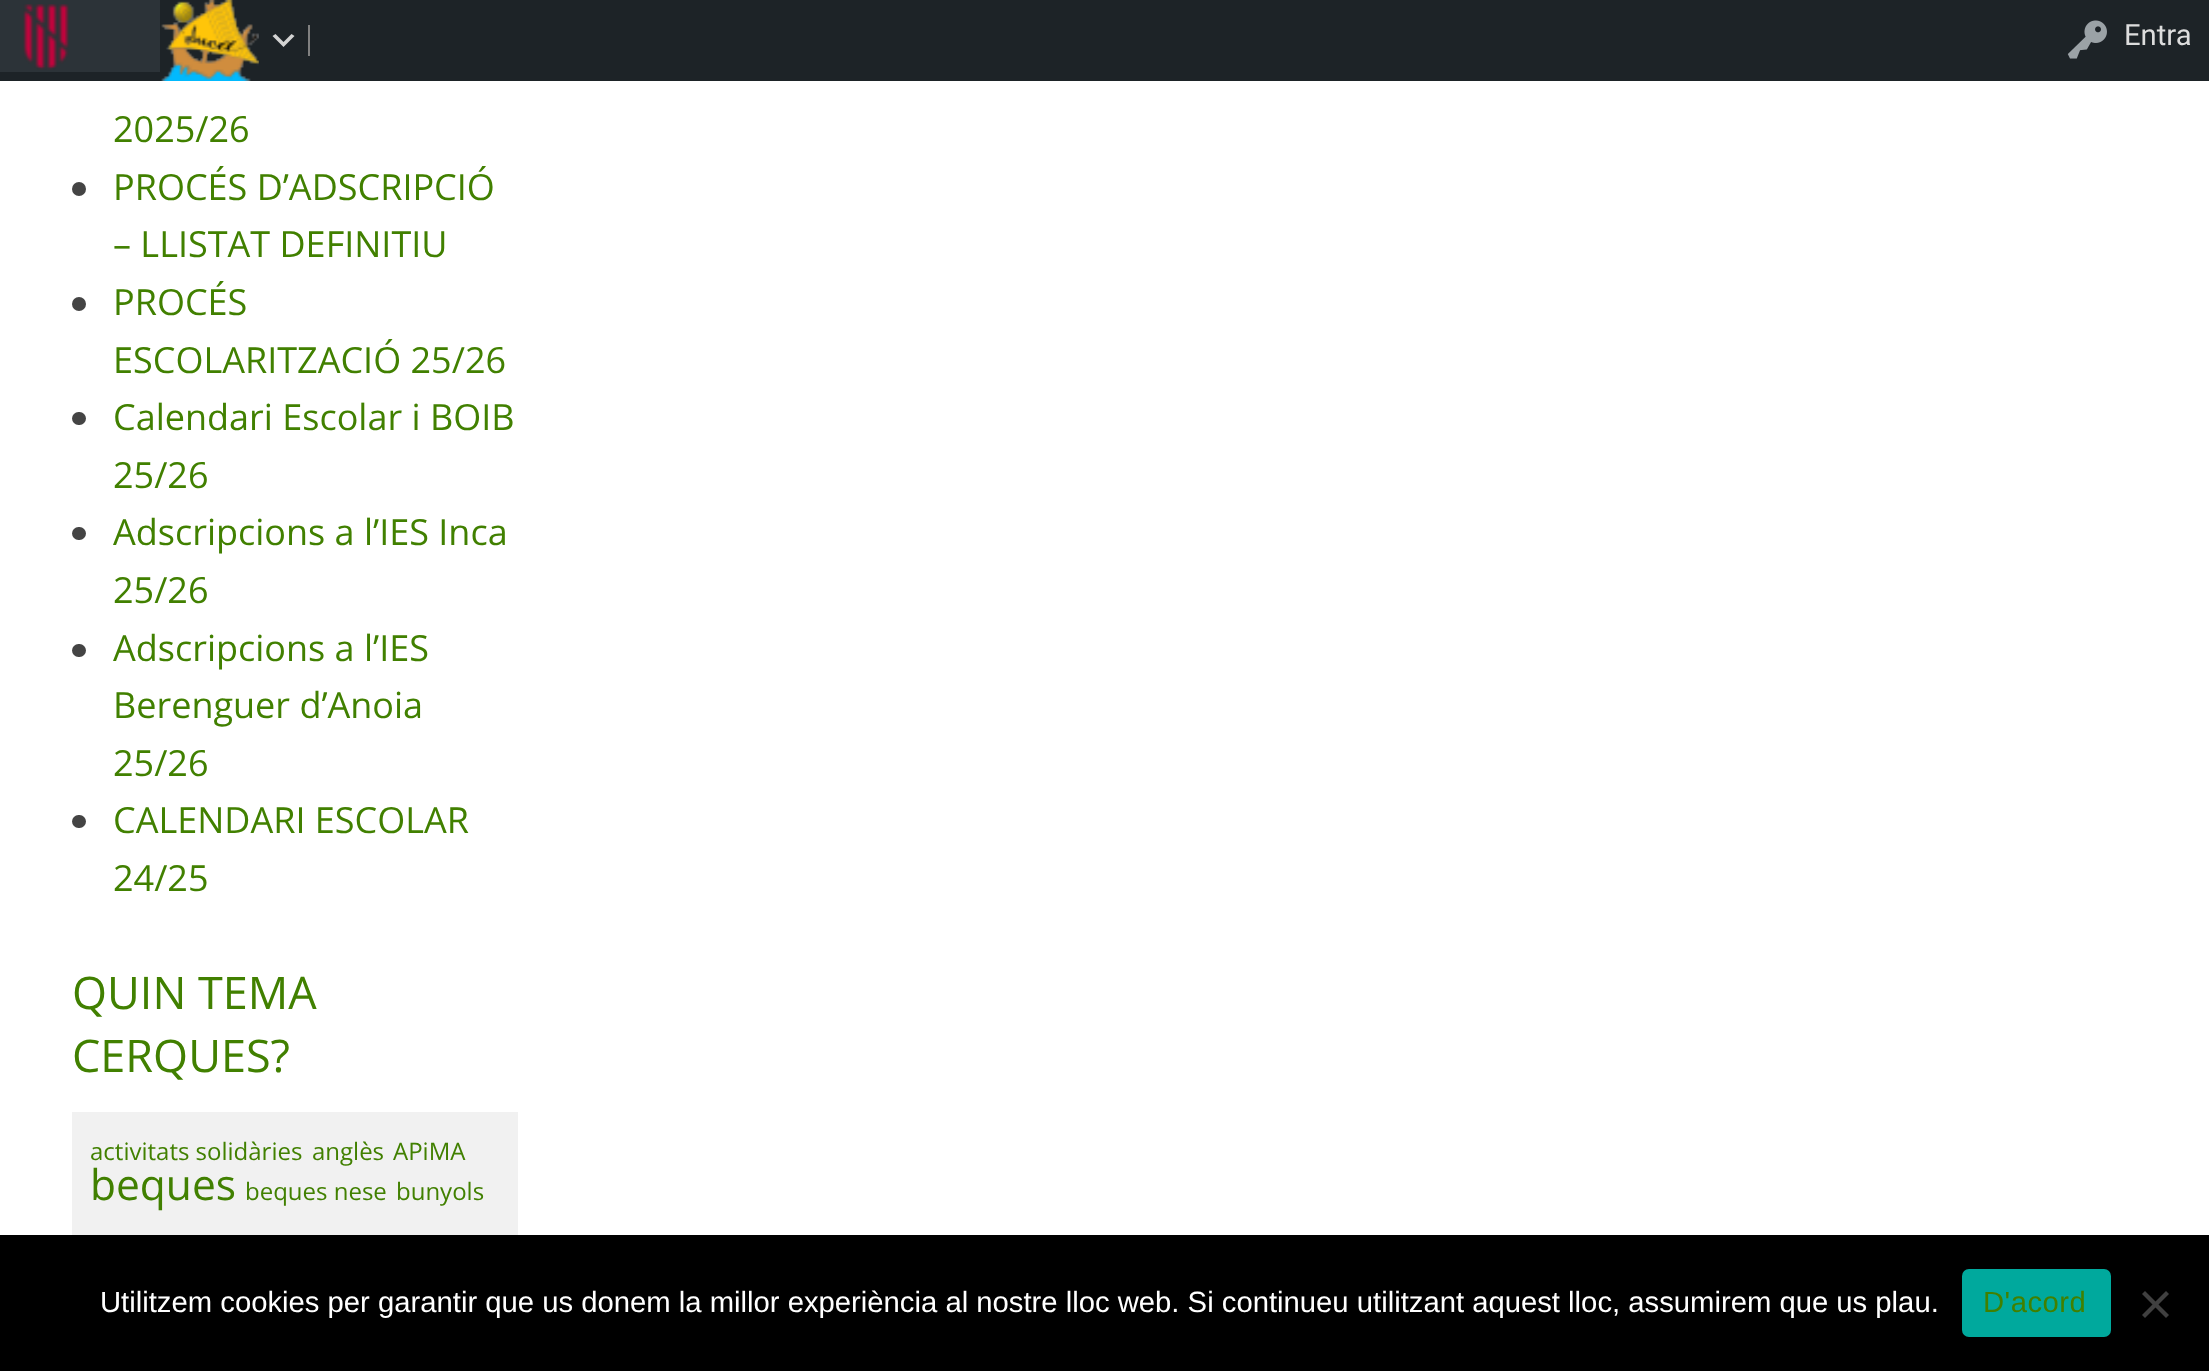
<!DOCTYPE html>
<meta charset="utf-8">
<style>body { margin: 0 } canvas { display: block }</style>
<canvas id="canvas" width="2209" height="1371"></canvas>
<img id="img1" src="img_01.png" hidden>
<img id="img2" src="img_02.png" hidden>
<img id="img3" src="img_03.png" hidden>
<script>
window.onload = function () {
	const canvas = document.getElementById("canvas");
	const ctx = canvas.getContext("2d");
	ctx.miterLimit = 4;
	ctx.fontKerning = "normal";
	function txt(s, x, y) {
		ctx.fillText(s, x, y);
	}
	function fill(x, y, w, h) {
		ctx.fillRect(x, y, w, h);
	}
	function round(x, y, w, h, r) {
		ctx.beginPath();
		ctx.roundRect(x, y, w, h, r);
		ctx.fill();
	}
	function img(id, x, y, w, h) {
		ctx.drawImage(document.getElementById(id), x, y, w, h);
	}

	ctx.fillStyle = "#FFFFFF";
	fill(0, 0, 2209, 1371);
	ctx.fillStyle = "#1D2327";
	fill(0, 0, 2209, 81);
	ctx.fillStyle = "#2C3338";
	fill(0, 0, 160, 72);
	img("img1", 23, 4, 46, 66);
	img("img2", 161, 0, 98, 81);
	ctx.fillStyle = "#808080";
	fill(308, 25, 2, 31);
	ctx.fillStyle = "#D3D3D3";
	ctx.beginPath();
	ctx.moveTo(275.5, 34);
	ctx.lineTo(283.5, 42);
	ctx.lineTo(291.5, 34);
	ctx.lineTo(294.5, 36);
	ctx.lineTo(283.5, 47);
	ctx.lineTo(272.5, 36);
	ctx.closePath();
	ctx.fill();
	img("img3", 2067, 20, 40, 39);
	ctx.fillStyle = "#444444";
	ctx.beginPath();
	ctx.arc(79, 189, 7, 0, Math.PI * 2);
	ctx.fill();
	ctx.beginPath();
	ctx.arc(79, 304, 7, 0, Math.PI * 2);
	ctx.fill();
	round(72, 412, 14, 13, 6.5);
	round(72, 527, 14, 13, 6.5);
	round(72, 644, 14, 13, 6.5);
	round(72, 815, 14, 13, 6.5);
	ctx.fillStyle = "#F1F1F1";
	fill(72, 1112, 446, 123);
	ctx.fillStyle = "#000000";
	fill(0, 1235, 2209, 136);
	ctx.fillStyle = "#00A99D";
	round(1962, 1269, 149, 68, 7);
	ctx.fillStyle = "#404040";
	ctx.beginPath();
	ctx.moveTo(2166, 1291);
	ctx.lineTo(2169, 1294);
	ctx.lineTo(2145, 1318);
	ctx.lineTo(2142, 1315);
	ctx.closePath();
	ctx.fill();
	ctx.beginPath();
	ctx.moveTo(2142, 1294);
	ctx.lineTo(2145, 1291);
	ctx.lineTo(2169, 1315);
	ctx.lineTo(2166, 1318);
	ctx.closePath();
	ctx.fill();
	ctx.font = "29.25px Roboto";
	ctx.fillStyle = "#DDDDDD";
	txt("Entra", 2124, 45);
	ctx.font = "36px Open Sans";
	ctx.fillStyle = "#418000";
	txt("2025/26", 113, 142);
	txt("PROCÉS D’ADSCRIPCIÓ", 113, 200);
	txt("– LLISTAT DEFINITIU", 113, 257);
	txt("PROCÉS", 113, 315);
	txt("ESCOLARITZACIÓ 25/26", 113, 373);
	txt("Calendari Escolar i BOIB", 113, 430);
	txt("25/26", 113, 488);
	txt("Adscripcions a l’IES Inca", 113, 545);
	txt("25/26", 113, 603);
	txt("Adscripcions a l’IES", 113, 661);
	txt("Berenguer d’Anoia", 113, 718);
	txt("25/26", 113, 776);
	txt("CALENDARI ESCOLAR", 113, 833);
	txt("24/25", 113, 891);
	ctx.font = "45px Open Sans";
	txt("QUIN TEMA", 72, 1009);
	txt("CERQUES?", 72, 1072);
	ctx.font = "24px Open Sans";
	txt("activitats solidàries", 90, 1160);
	txt("anglès", 312, 1160);
	txt("APiMA", 393, 1160);
	ctx.font = "42.5px Open Sans";
	txt("beques", 90, 1200);
	ctx.font = "24px Open Sans";
	txt("beques nese", 245, 1200);
	txt("bunyols", 396, 1200);
	ctx.font = "29.25px Liberation Sans";
	ctx.fillStyle = "#FFFFFF";
	txt("Utilitzem cookies per garantir que us donem la millor experiència al nostre lloc web. Si continueu utilitzant aquest lloc, assumirem que us plau.", 100, 1312);
	ctx.letterSpacing = "0.5px";
	ctx.fillStyle = "#418000";
	txt("D'acord", 1983, 1312);
};
</script>
